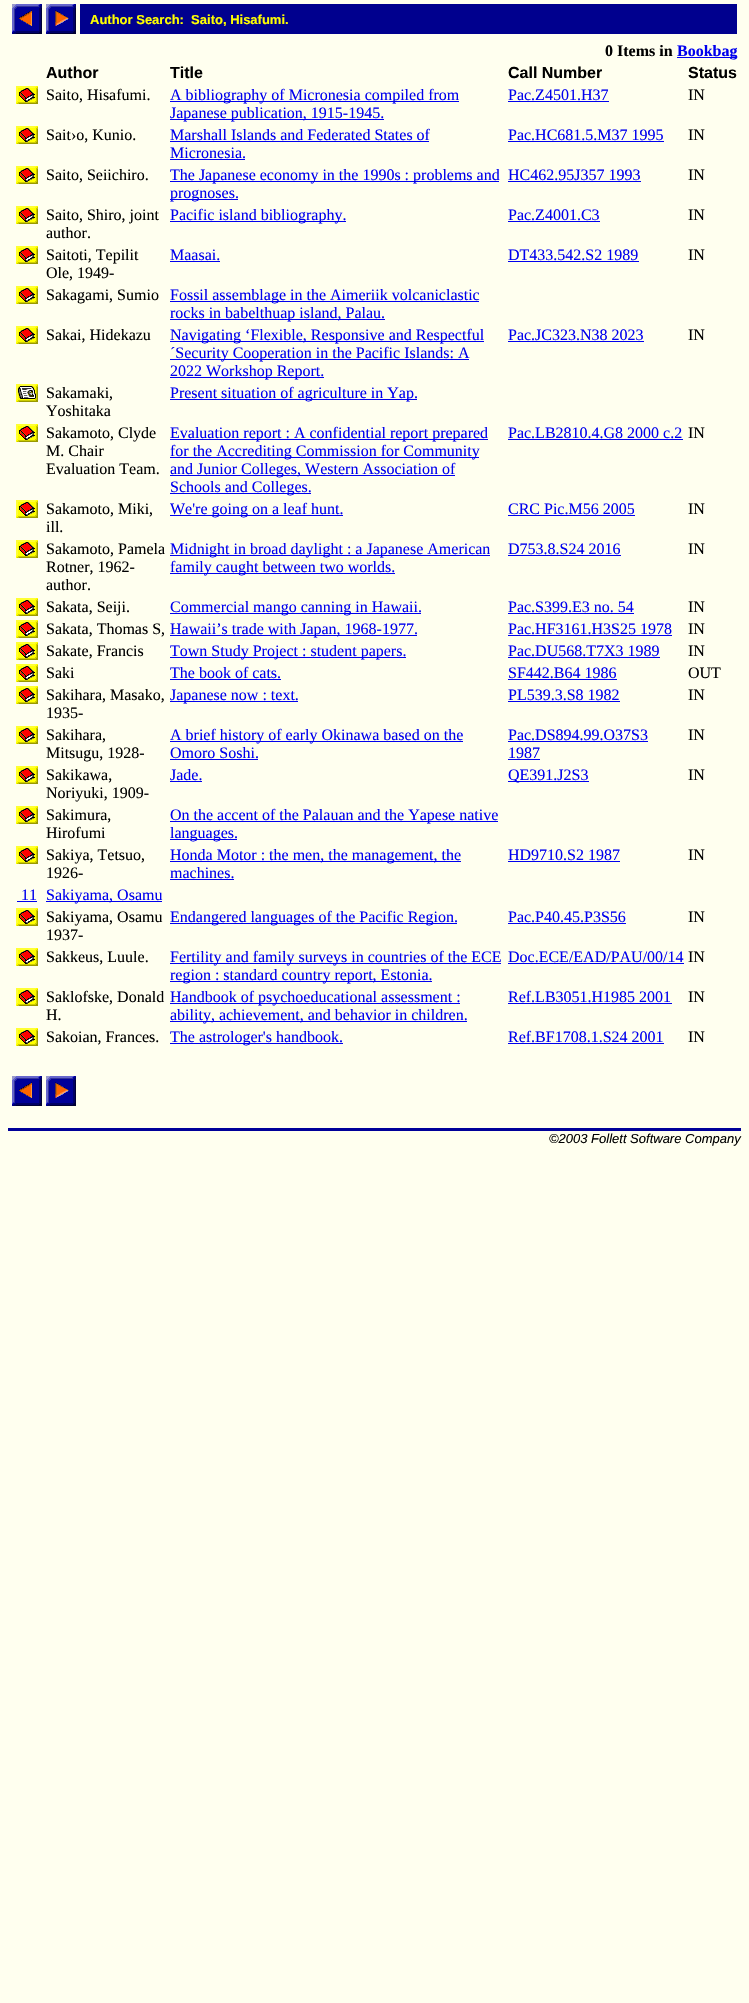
void draw(SkCanvas* canvas) {
	SkPaint fill;
	fill.setAntiAlias(true);
	auto makeFont = [&](const char* family, int weight, float size, bool italic = false) {
		SkFontStyle style(weight, SkFontStyle::kNormal_Width,
			italic ? SkFontStyle::kItalic_Slant : SkFontStyle::kUpright_Slant);
		SkFont result(fontMgr->matchFamilyStyle(family, style), size);
		result.setSubpixel(true);
		return result;
	};
	auto text = [&](const char* s, float x, float y, const SkFont& font) {
		canvas->drawString(s, x, y, font, fill);
	};
	auto box = [&](float l, float t, float r, float b) {
		canvas->drawRect(SkRect::MakeLTRB(l, t, r, b), fill);
	};
	auto picture = [&](const char* path, float l, float t, float r, float b) {
		auto image = SkImages::DeferredFromEncodedData(SkData::MakeFromFileName(path));
		canvas->drawImageRect(image, SkRect::MakeLTRB(l, t, r, b), SkSamplingOptions());
	};
	canvas->clear(0xFFFFFFEF);
	picture("image0.png", 12, 4, 42, 34);
	picture("image1.png", 46, 4, 76, 34);
	fill.setColor(0xFF00008E);
	box(80, 4, 737, 34);
	fill.setColor(0xFF0000EE);
	box(677, 57, 737, 58);
	picture("image2.png", 16, 86, 38, 104);
	box(170, 101, 459, 102);
	box(170, 119, 384, 120);
	box(508, 101, 609, 102);
	picture("image2.png", 16, 126, 38, 144);
	box(170, 141, 429, 142);
	box(170, 159, 245, 160);
	box(508, 141, 664, 142);
	picture("image2.png", 16, 166, 38, 184);
	box(170, 181, 499, 182);
	box(170, 199, 238, 200);
	box(508, 181, 641, 182);
	picture("image2.png", 16, 206, 38, 224);
	box(170, 221, 346, 222);
	box(508, 221, 600, 222);
	picture("image2.png", 16, 246, 38, 264);
	box(170, 261, 220, 262);
	box(508, 261, 639, 262);
	picture("image2.png", 16, 286, 38, 304);
	box(170, 301, 479, 302);
	box(170, 319, 385, 320);
	picture("image2.png", 16, 326, 38, 344);
	box(170, 341, 484, 342);
	box(170, 359, 469, 360);
	box(170, 377, 324, 378);
	box(508, 341, 644, 342);
	picture("image3.png", 16, 384, 38, 402);
	box(170, 399, 417, 400);
	picture("image2.png", 16, 424, 38, 442);
	box(170, 439, 488, 440);
	box(170, 457, 479, 458);
	box(170, 475, 455, 476);
	box(170, 493, 311, 494);
	box(508, 439, 683, 440);
	picture("image2.png", 16, 500, 38, 518);
	box(170, 515, 343, 516);
	box(508, 515, 635, 516);
	picture("image2.png", 16, 540, 38, 558);
	box(170, 555, 490, 556);
	box(170, 573, 395, 574);
	box(508, 555, 621, 556);
	picture("image2.png", 16, 598, 38, 616);
	box(170, 613, 421, 614);
	box(508, 613, 634, 614);
	picture("image2.png", 16, 620, 38, 638);
	box(170, 635, 417, 636);
	box(508, 635, 672, 636);
	picture("image2.png", 16, 642, 38, 660);
	box(170, 657, 406, 658);
	box(508, 657, 660, 658);
	picture("image2.png", 16, 664, 38, 682);
	box(170, 679, 281, 680);
	box(508, 679, 617, 680);
	picture("image2.png", 16, 686, 38, 704);
	box(170, 701, 298, 702);
	box(508, 701, 620, 702);
	picture("image2.png", 16, 726, 38, 744);
	box(170, 741, 463, 742);
	box(170, 759, 258, 760);
	box(508, 741, 648, 742);
	box(508, 759, 540, 760);
	picture("image2.png", 16, 766, 38, 784);
	box(170, 781, 202, 782);
	box(508, 781, 589, 782);
	picture("image2.png", 16, 806, 38, 824);
	box(170, 821, 498, 822);
	box(170, 839, 237, 840);
	picture("image2.png", 16, 846, 38, 864);
	box(170, 861, 461, 862);
	box(170, 879, 234, 880);
	box(508, 861, 620, 862);
	box(17, 901, 37, 902);
	box(46, 901, 162, 902);
	picture("image2.png", 16, 908, 38, 926);
	box(170, 923, 457, 924);
	box(508, 923, 626, 924);
	picture("image2.png", 16, 948, 38, 966);
	box(170, 963, 501, 964);
	box(170, 981, 432, 982);
	box(508, 963, 684, 964);
	picture("image2.png", 16, 988, 38, 1006);
	box(170, 1003, 460, 1004);
	box(170, 1021, 467, 1022);
	box(508, 1003, 672, 1004);
	picture("image2.png", 16, 1028, 38, 1046);
	box(170, 1043, 343, 1044);
	box(508, 1043, 664, 1044);
	picture("image0.png", 12, 1076, 42, 1106);
	picture("image1.png", 46, 1076, 76, 1106);
	fill.setColor(0xFF000099);
	box(8, 1128, 741, 1131);
	auto font1 = makeFont("Liberation Sans", 700, 13);
	fill.setColor(0xFFFFFF00);
	text("Author Search:  Saito, Hisafumi.", 90, 24, font1);
	auto font2 = makeFont("Liberation Serif", 700, 16);
	fill.setColor(0xFF000000);
	text("0 Items in", 605, 56, font2);
	fill.setColor(0xFF0000EE);
	text("Bookbag", 677, 56, font2);
	auto font3 = makeFont("Liberation Sans", 700, 16);
	fill.setColor(0xFF000000);
	text("Author", 46, 78, font3);
	text("Title", 170, 78, font3);
	text("Call Number", 508, 78, font3);
	text("Status", 688, 78, font3);
	auto font4 = makeFont("Liberation Serif", 400, 16);
	text("Saito, Hisafumi.", 46, 100, font4);
	fill.setColor(0xFF0000EE);
	text("A bibliography of Micronesia compiled from", 170, 100, font4);
	text("Japanese publication, 1915-1945.", 170, 118, font4);
	text("Pac.Z4501.H37", 508, 100, font4);
	fill.setColor(0xFF000000);
	text("IN", 688, 100, font4);
	text("Sait›o, Kunio.", 46, 140, font4);
	fill.setColor(0xFF0000EE);
	text("Marshall Islands and Federated States of", 170, 140, font4);
	text("Micronesia.", 170, 158, font4);
	text("Pac.HC681.5.M37 1995", 508, 140, font4);
	fill.setColor(0xFF000000);
	text("IN", 688, 140, font4);
	text("Saito, Seiichiro.", 46, 180, font4);
	fill.setColor(0xFF0000EE);
	text("The Japanese economy in the 1990s : problems and", 170, 180, font4);
	text("prognoses.", 170, 198, font4);
	text("HC462.95J357 1993", 508, 180, font4);
	fill.setColor(0xFF000000);
	text("IN", 688, 180, font4);
	text("Saito, Shiro, joint", 46, 220, font4);
	text("author.", 46, 238, font4);
	fill.setColor(0xFF0000EE);
	text("Pacific island bibliography.", 170, 220, font4);
	text("Pac.Z4001.C3", 508, 220, font4);
	fill.setColor(0xFF000000);
	text("IN", 688, 220, font4);
	text("Saitoti, Tepilit", 46, 260, font4);
	text("Ole, 1949-", 46, 278, font4);
	fill.setColor(0xFF0000EE);
	text("Maasai.", 170, 260, font4);
	text("DT433.542.S2 1989", 508, 260, font4);
	fill.setColor(0xFF000000);
	text("IN", 688, 260, font4);
	text("Sakagami, Sumio", 46, 300, font4);
	fill.setColor(0xFF0000EE);
	text("Fossil assemblage in the Aimeriik volcaniclastic", 170, 300, font4);
	text("rocks in babelthuap island, Palau.", 170, 318, font4);
	fill.setColor(0xFF000000);
	text("Sakai, Hidekazu", 46, 340, font4);
	fill.setColor(0xFF0000EE);
	text("Navigating ‘Flexible, Responsive and Respectful", 170, 340, font4);
	text("´Security Cooperation in the Pacific Islands: A", 170, 358, font4);
	text("2022 Workshop Report.", 170, 376, font4);
	text("Pac.JC323.N38 2023", 508, 340, font4);
	fill.setColor(0xFF000000);
	text("IN", 688, 340, font4);
	text("Sakamaki,", 46, 398, font4);
	text("Yoshitaka", 46, 416, font4);
	fill.setColor(0xFF0000EE);
	text("Present situation of agriculture in Yap.", 170, 398, font4);
	fill.setColor(0xFF000000);
	text("Sakamoto, Clyde", 46, 438, font4);
	text("M. Chair", 46, 456, font4);
	text("Evaluation Team.", 46, 474, font4);
	fill.setColor(0xFF0000EE);
	text("Evaluation report : A confidential report prepared", 170, 438, font4);
	text("for the Accrediting Commission for Community", 170, 456, font4);
	text("and Junior Colleges, Western Association of", 170, 474, font4);
	text("Schools and Colleges.", 170, 492, font4);
	text("Pac.LB2810.4.G8 2000 c.2", 508, 438, font4);
	fill.setColor(0xFF000000);
	text("IN", 688, 438, font4);
	text("Sakamoto, Miki,", 46, 514, font4);
	text("ill.", 46, 532, font4);
	fill.setColor(0xFF0000EE);
	text("We're going on a leaf hunt.", 170, 514, font4);
	text("CRC Pic.M56 2005", 508, 514, font4);
	fill.setColor(0xFF000000);
	text("IN", 688, 514, font4);
	text("Sakamoto, Pamela", 46, 554, font4);
	text("Rotner, 1962-", 46, 572, font4);
	text("author.", 46, 590, font4);
	fill.setColor(0xFF0000EE);
	text("Midnight in broad daylight : a Japanese American", 170, 554, font4);
	text("family caught between two worlds.", 170, 572, font4);
	text("D753.8.S24 2016", 508, 554, font4);
	fill.setColor(0xFF000000);
	text("IN", 688, 554, font4);
	text("Sakata, Seiji.", 46, 612, font4);
	fill.setColor(0xFF0000EE);
	text("Commercial mango canning in Hawaii.", 170, 612, font4);
	text("Pac.S399.E3 no. 54", 508, 612, font4);
	fill.setColor(0xFF000000);
	text("IN", 688, 612, font4);
	text("Sakata, Thomas S,", 46, 634, font4);
	fill.setColor(0xFF0000EE);
	text("Hawaii’s trade with Japan, 1968-1977.", 170, 634, font4);
	text("Pac.HF3161.H3S25 1978", 508, 634, font4);
	fill.setColor(0xFF000000);
	text("IN", 688, 634, font4);
	text("Sakate, Francis", 46, 656, font4);
	fill.setColor(0xFF0000EE);
	text("Town Study Project : student papers.", 170, 656, font4);
	text("Pac.DU568.T7X3 1989", 508, 656, font4);
	fill.setColor(0xFF000000);
	text("IN", 688, 656, font4);
	text("Saki", 46, 678, font4);
	fill.setColor(0xFF0000EE);
	text("The book of cats.", 170, 678, font4);
	text("SF442.B64 1986", 508, 678, font4);
	fill.setColor(0xFF000000);
	text("OUT", 688, 678, font4);
	text("Sakihara, Masako,", 46, 700, font4);
	text("1935-", 46, 718, font4);
	fill.setColor(0xFF0000EE);
	text("Japanese now : text.", 170, 700, font4);
	text("PL539.3.S8 1982", 508, 700, font4);
	fill.setColor(0xFF000000);
	text("IN", 688, 700, font4);
	text("Sakihara,", 46, 740, font4);
	text("Mitsugu, 1928-", 46, 758, font4);
	fill.setColor(0xFF0000EE);
	text("A brief history of early Okinawa based on the", 170, 740, font4);
	text("Omoro Soshi.", 170, 758, font4);
	text("Pac.DS894.99.O37S3", 508, 740, font4);
	text("1987", 508, 758, font4);
	fill.setColor(0xFF000000);
	text("IN", 688, 740, font4);
	text("Sakikawa,", 46, 780, font4);
	text("Noriyuki, 1909-", 46, 798, font4);
	fill.setColor(0xFF0000EE);
	text("Jade.", 170, 780, font4);
	text("QE391.J2S3", 508, 780, font4);
	fill.setColor(0xFF000000);
	text("IN", 688, 780, font4);
	text("Sakimura,", 46, 820, font4);
	text("Hirofumi", 46, 838, font4);
	fill.setColor(0xFF0000EE);
	text("On the accent of the Palauan and the Yapese native", 170, 820, font4);
	text("languages.", 170, 838, font4);
	fill.setColor(0xFF000000);
	text("Sakiya, Tetsuo,", 46, 860, font4);
	text("1926-", 46, 878, font4);
	fill.setColor(0xFF0000EE);
	text("Honda Motor : the men, the management, the", 170, 860, font4);
	text("machines.", 170, 878, font4);
	text("HD9710.S2 1987", 508, 860, font4);
	fill.setColor(0xFF000000);
	text("IN", 688, 860, font4);
	fill.setColor(0xFF0000EE);
	text("11", 21, 900, font4);
	text("Sakiyama, Osamu", 46, 900, font4);
	fill.setColor(0xFF000000);
	text("Sakiyama, Osamu", 46, 922, font4);
	text("1937-", 46, 940, font4);
	fill.setColor(0xFF0000EE);
	text("Endangered languages of the Pacific Region.", 170, 922, font4);
	text("Pac.P40.45.P3S56", 508, 922, font4);
	fill.setColor(0xFF000000);
	text("IN", 688, 922, font4);
	text("Sakkeus, Luule.", 46, 962, font4);
	fill.setColor(0xFF0000EE);
	text("Fertility and family surveys in countries of the ECE", 170, 962, font4);
	text("region : standard country report, Estonia.", 170, 980, font4);
	text("Doc.ECE/EAD/PAU/00/14", 508, 962, font4);
	fill.setColor(0xFF000000);
	text("IN", 688, 962, font4);
	text("Saklofske, Donald", 46, 1002, font4);
	text("H.", 46, 1020, font4);
	fill.setColor(0xFF0000EE);
	text("Handbook of psychoeducational assessment :", 170, 1002, font4);
	text("ability, achievement, and behavior in children.", 170, 1020, font4);
	text("Ref.LB3051.H1985 2001", 508, 1002, font4);
	fill.setColor(0xFF000000);
	text("IN", 688, 1002, font4);
	text("Sakoian, Frances.", 46, 1042, font4);
	fill.setColor(0xFF0000EE);
	text("The astrologer's handbook.", 170, 1042, font4);
	text("Ref.BF1708.1.S24 2001", 508, 1042, font4);
	fill.setColor(0xFF000000);
	text("IN", 688, 1042, font4);
	auto font5 = makeFont("Liberation Sans", 400, 13, true);
	text("©2003 Follett Software Company", 549, 1143, font5);
}
